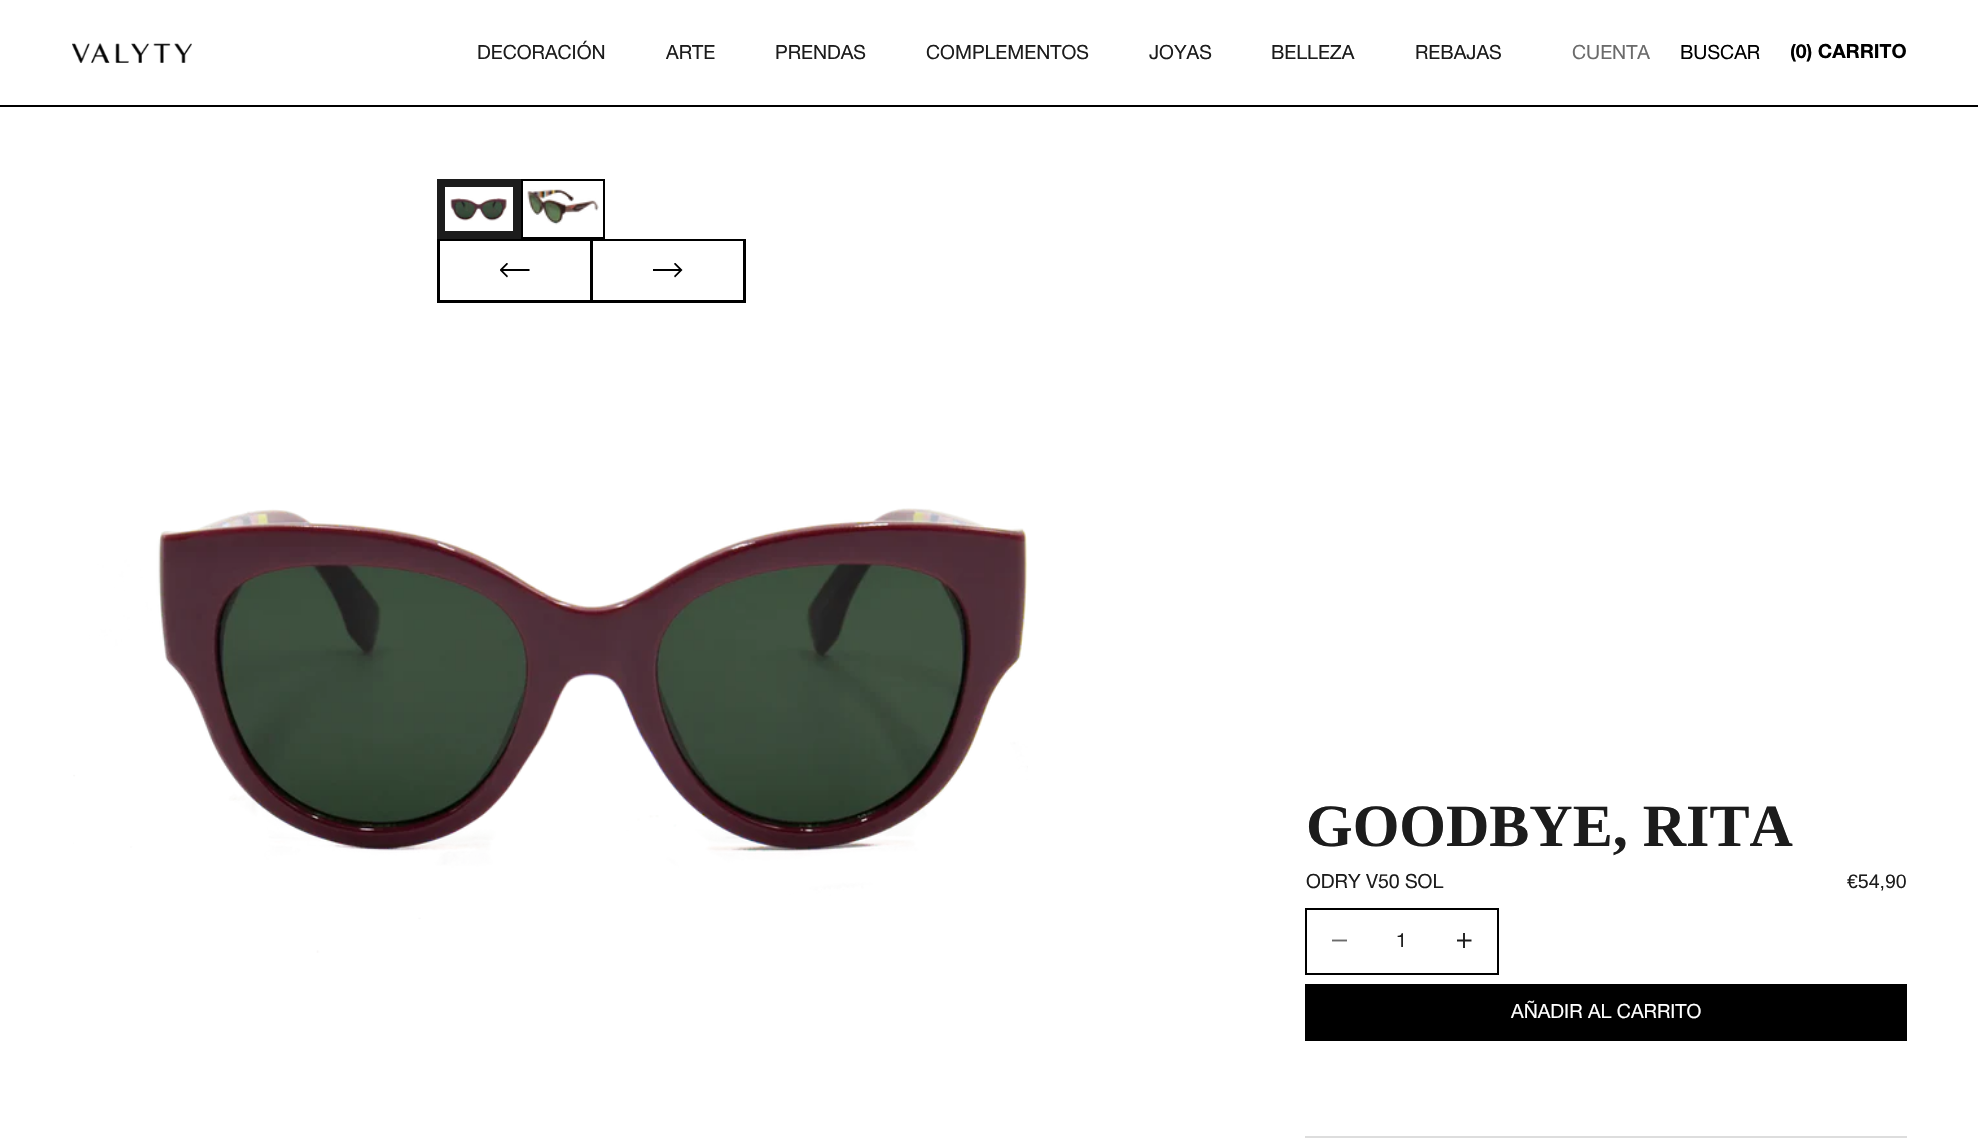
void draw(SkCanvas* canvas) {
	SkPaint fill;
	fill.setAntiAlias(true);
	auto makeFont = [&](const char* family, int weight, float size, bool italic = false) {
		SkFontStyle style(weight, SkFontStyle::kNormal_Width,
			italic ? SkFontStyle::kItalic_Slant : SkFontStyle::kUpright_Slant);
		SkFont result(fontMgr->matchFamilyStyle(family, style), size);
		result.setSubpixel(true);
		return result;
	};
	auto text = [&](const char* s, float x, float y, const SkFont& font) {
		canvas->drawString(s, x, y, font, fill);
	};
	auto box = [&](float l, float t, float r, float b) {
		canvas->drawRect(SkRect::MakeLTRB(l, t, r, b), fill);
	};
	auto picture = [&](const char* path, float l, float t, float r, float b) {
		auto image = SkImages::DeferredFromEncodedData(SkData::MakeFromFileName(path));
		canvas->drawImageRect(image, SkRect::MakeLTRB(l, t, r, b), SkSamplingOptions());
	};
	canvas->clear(0xFFFFFFFF);
	fill.setColor(0xFF000000);
	box(0, 105, 1978, 107);
	picture("image0.png", 72, 43, 192, 63);
	fill.setStyle(SkPaint::kStroke_Style);
	fill.setStrokeWidth(8);
	fill.setColor(0xFF1C1C1C);
	canvas->drawRect(SkRect::MakeLTRB(441, 183, 517, 235), fill);
	picture("image1.png", 450, 198, 507, 221);
	fill.setStrokeWidth(2);
	fill.setColor(0xFF000000);
	canvas->drawRect(SkRect::MakeLTRB(522, 180, 604, 238), fill);
	picture("image2.png", 527, 189, 599, 225);
	fill.setStyle(SkPaint::kFill_Style);
	box(437, 239, 746, 241);
	box(590, 239, 593, 303);
	box(437, 300, 593, 303);
	box(437, 239, 440, 303);
	canvas->save();
	canvas->clipRect(SkRect::MakeLTRB(500, 263, 530, 278));
	canvas->drawPath(SkPathBuilder().moveTo(507, 277.5f).lineTo(508, 276).lineTo(503, 271).lineTo(529.5f, 271).lineTo(529.5f, 269).lineTo(503, 269).lineTo(508, 264).lineTo(507, 262.5f).lineTo(499.5f, 270).close().detach(), fill);
	canvas->restore();
	box(743, 239, 746, 303);
	box(593, 300, 746, 303);
	canvas->save();
	canvas->clipRect(SkRect::MakeLTRB(653, 263, 683, 278));
	canvas->drawPath(SkPathBuilder().moveTo(675, 262.5f).lineTo(674, 264).lineTo(679, 269).lineTo(652.5f, 269).lineTo(652.5f, 271).lineTo(679, 271).lineTo(674, 276).lineTo(675, 277.5f).lineTo(682.5f, 270).close().detach(), fill);
	canvas->restore();
	picture("image3.png", 73, 508, 1028, 953);
	fill.setStyle(SkPaint::kStroke_Style);
	canvas->drawRect(SkRect::MakeLTRB(1306, 909, 1498, 974), fill);
	fill.setStrokeWidth(1.9f);
	fill.setColor(0xFF6B6B6B);
	canvas->drawPath(SkPathBuilder().moveTo(1332, 940.5f).lineTo(1347, 940.5f).detach(), fill);
	canvas->save();
	canvas->clipRect(SkRect::MakeLTRB(1457, 933, 1472, 948));
	fill.setColor(0xFF1C1C1C);
	canvas->drawPath(SkPathBuilder().moveTo(1464, 933).lineTo(1464, 948).moveTo(1456.5f, 940.5f).lineTo(1471.5f, 940.5f).detach(), fill);
	canvas->restore();
	fill.setStyle(SkPaint::kFill_Style);
	fill.setColor(0xFF000000);
	box(1305, 984, 1907, 1041);
	fill.setColor(0xFFDDDDDD);
	box(1305, 1136, 1907, 1138);
	auto font1 = makeFont("Helvetica Neue", 400, 19.5f);
	fill.setColor(0xFF1C1C1C);
	text("DECORACIÓN", 477, 59, font1);
	text("ARTE", 666, 59, font1);
	text("PRENDAS", 775, 59, font1);
	text("COMPLEMENTOS", 926, 59, font1);
	text("JOYAS", 1149, 59, font1);
	text("BELLEZA", 1271, 59, font1);
	text("REBAJAS", 1415, 59, font1);
	fill.setColor(0xFF6B6B6B);
	text("CUENTA", 1572, 59, font1);
	fill.setColor(0xFF000000);
	text("BUSCAR", 1680, 59, font1);
	auto font2 = makeFont("Helvetica Neue", 700, 19.5f);
	text("(0) CARRITO", 1790, 58, font2);
	auto font3 = makeFont("Liberation Serif", 700, 60);
	fill.setColor(0xFF1C1C1C);
	text("GOODBYE, RITA", 1306, 846, font3);
	text("ODRY V50 SOL", 1306, 888, font1);
	auto font4 = makeFont("Liberation Sans", 400, 19.5f);
	text("€54,90", 1847, 888, font4);
	text("1", 1396, 947, font1);
	fill.setColor(0xFFFFFFFF);
	text("AÑADIR AL CARRITO", 1511, 1018, font1);
}
